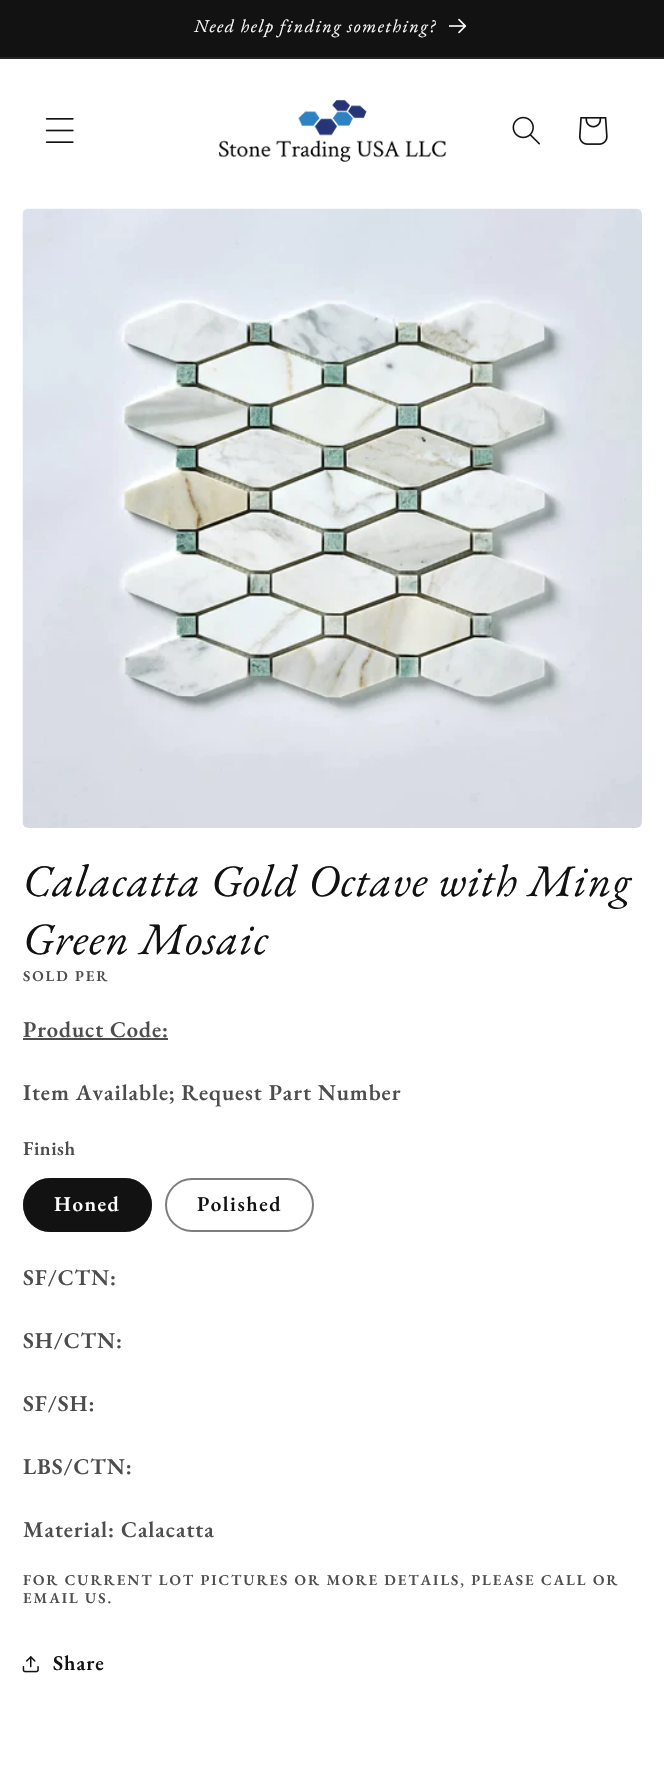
void draw(SkCanvas* canvas) {
	SkPaint fill;
	fill.setAntiAlias(true);
	auto makeFont = [&](const char* family, int weight, float size, bool italic = false) {
		SkFontStyle style(weight, SkFontStyle::kNormal_Width,
			italic ? SkFontStyle::kItalic_Slant : SkFontStyle::kUpright_Slant);
		SkFont result(fontMgr->matchFamilyStyle(family, style), size);
		result.setSubpixel(true);
		return result;
	};
	auto spacedText = [&](const char* s, float x, float y, const SkFont& font, const SkPaint& ink, float letter, float word) {
		std::vector<SkGlyphID> glyphs(font.countText(s, strlen(s), SkTextEncoding::kUTF8));
		std::vector<float> xs(glyphs.size());
		font.textToGlyphs(s, strlen(s), SkTextEncoding::kUTF8, glyphs);
		font.getXPos(glyphs, xs, x);
		float extra = 0;
		for (size_t i = 0; i < glyphs.size(); i++) {
			xs[i] += extra;
			extra += letter + word * (glyphs[i] == font.unicharToGlyph(' '));
		}
		canvas->drawTextBlob(SkTextBlob::MakeFromPosHGlyphs(glyphs, xs, y, font), 0, 0, ink);
	};
	auto box = [&](float l, float t, float r, float b) {
		canvas->drawRect(SkRect::MakeLTRB(l, t, r, b), fill);
	};
	auto roundBox = [&](float l, float t, float r, float b, float radius) {
		canvas->drawRoundRect(SkRect::MakeLTRB(l, t, r, b), radius, radius, fill);
	};
	auto picture = [&](const char* path, float l, float t, float r, float b) {
		auto image = SkImages::DeferredFromEncodedData(SkData::MakeFromFileName(path));
		canvas->drawImageRect(image, SkRect::MakeLTRB(l, t, r, b), SkSamplingOptions());
	};
	canvas->clear(0xFFFFFFFF);
	fill.setColor(0xFF121212);
	box(0, 0, 664, 57);
	fill.setColor(0xFF252525);
	box(0, 57, 664, 59);
	picture("image0.png", 449, 18, 467, 34);
	picture("image1.png", 45, 118, 74, 143);
	picture("image2.png", 218, 99, 447, 162);
	picture("image3.png", 512, 116, 540, 145);
	picture("image4.png", 579, 117, 608, 145);
	picture("image5.png", 22, 208, 642, 828);
	fill.setColor(0xFF4D4D4D);
	box(23, 1038, 168, 1040);
	fill.setColor(0xFF121212);
	roundBox(23, 1178, 152, 1232, 27);
	fill.setStyle(SkPaint::kStroke_Style);
	fill.setStrokeWidth(2);
	fill.setColor(0x8C121212);
	canvas->drawRoundRect(SkRect::MakeLTRB(24, 1179, 151, 1231), 26, 26, fill);
	fill.setColor(0xFF7D7D7D);
	canvas->drawRoundRect(SkRect::MakeLTRB(166, 1179, 313, 1231), 26, 26, fill);
	picture("image6.png", 22, 1656, 39, 1673);
	auto font1 = makeFont("EB Garamond", 400, 18, true);
	fill.setStyle(SkPaint::kFill_Style);
	fill.setColor(0xFFFFFFFF);
	spacedText("Need help finding something?", 194, 32, font1, fill, 1.5f, 0);
	auto font2 = makeFont("EB Garamond", 400, 45, true);
	fill.setColor(0xFF121212);
	spacedText("Calacatta Gold Octave with Ming", 23, 896, font2, fill, 0.9f, 0);
	spacedText("Green Mosaic", 23, 954, font2, fill, 0.9f, 0);
	auto font3 = makeFont("EB Garamond", 600, 15);
	fill.setColor(0xFF4D4D4D);
	spacedText("SOLD PER", 23, 981, font3, fill, 1.95f, 0);
	auto font4 = makeFont("EB Garamond", 600, 22.5f);
	spacedText("Product Code:", 23, 1037, font4, fill, 0.9f, 0);
	spacedText("Item Available; Request Part Number", 23, 1100, font4, fill, 0.9f, 0);
	auto font5 = makeFont("EB Garamond", 600, 19.5f);
	spacedText("Finish", 23, 1155, font5, fill, 0.5f, 0);
	auto font6 = makeFont("EB Garamond", 600, 21);
	fill.setColor(0xFFFFFFFF);
	spacedText("Honed", 54, 1211, font6, fill, 1.5f, 0);
	fill.setColor(0xFF121212);
	spacedText("Polished", 197, 1211, font6, fill, 1.5f, 0);
	fill.setColor(0xFF4D4D4D);
	spacedText("SF/CTN:", 23, 1285, font4, fill, 0.9f, 0);
	spacedText("SH/CTN:", 23, 1348, font4, fill, 0.9f, 0);
	spacedText("SF/SH:", 23, 1411, font4, fill, 0.9f, 0);
	spacedText("LBS/CTN:", 23, 1474, font4, fill, 0.9f, 0);
	spacedText("Material: Calacatta", 23, 1537, font4, fill, 0.9f, 0);
	spacedText("FOR CURRENT LOT PICTURES OR MORE DETAILS, PLEASE CALL OR", 23, 1585, font3, fill, 1.95f, 0);
	spacedText("EMAIL US.", 23, 1603, font3, fill, 1.95f, 0);
	fill.setColor(0xFF121212);
	spacedText("Share", 53, 1670, font6, fill, 0.9f, 0);
}
